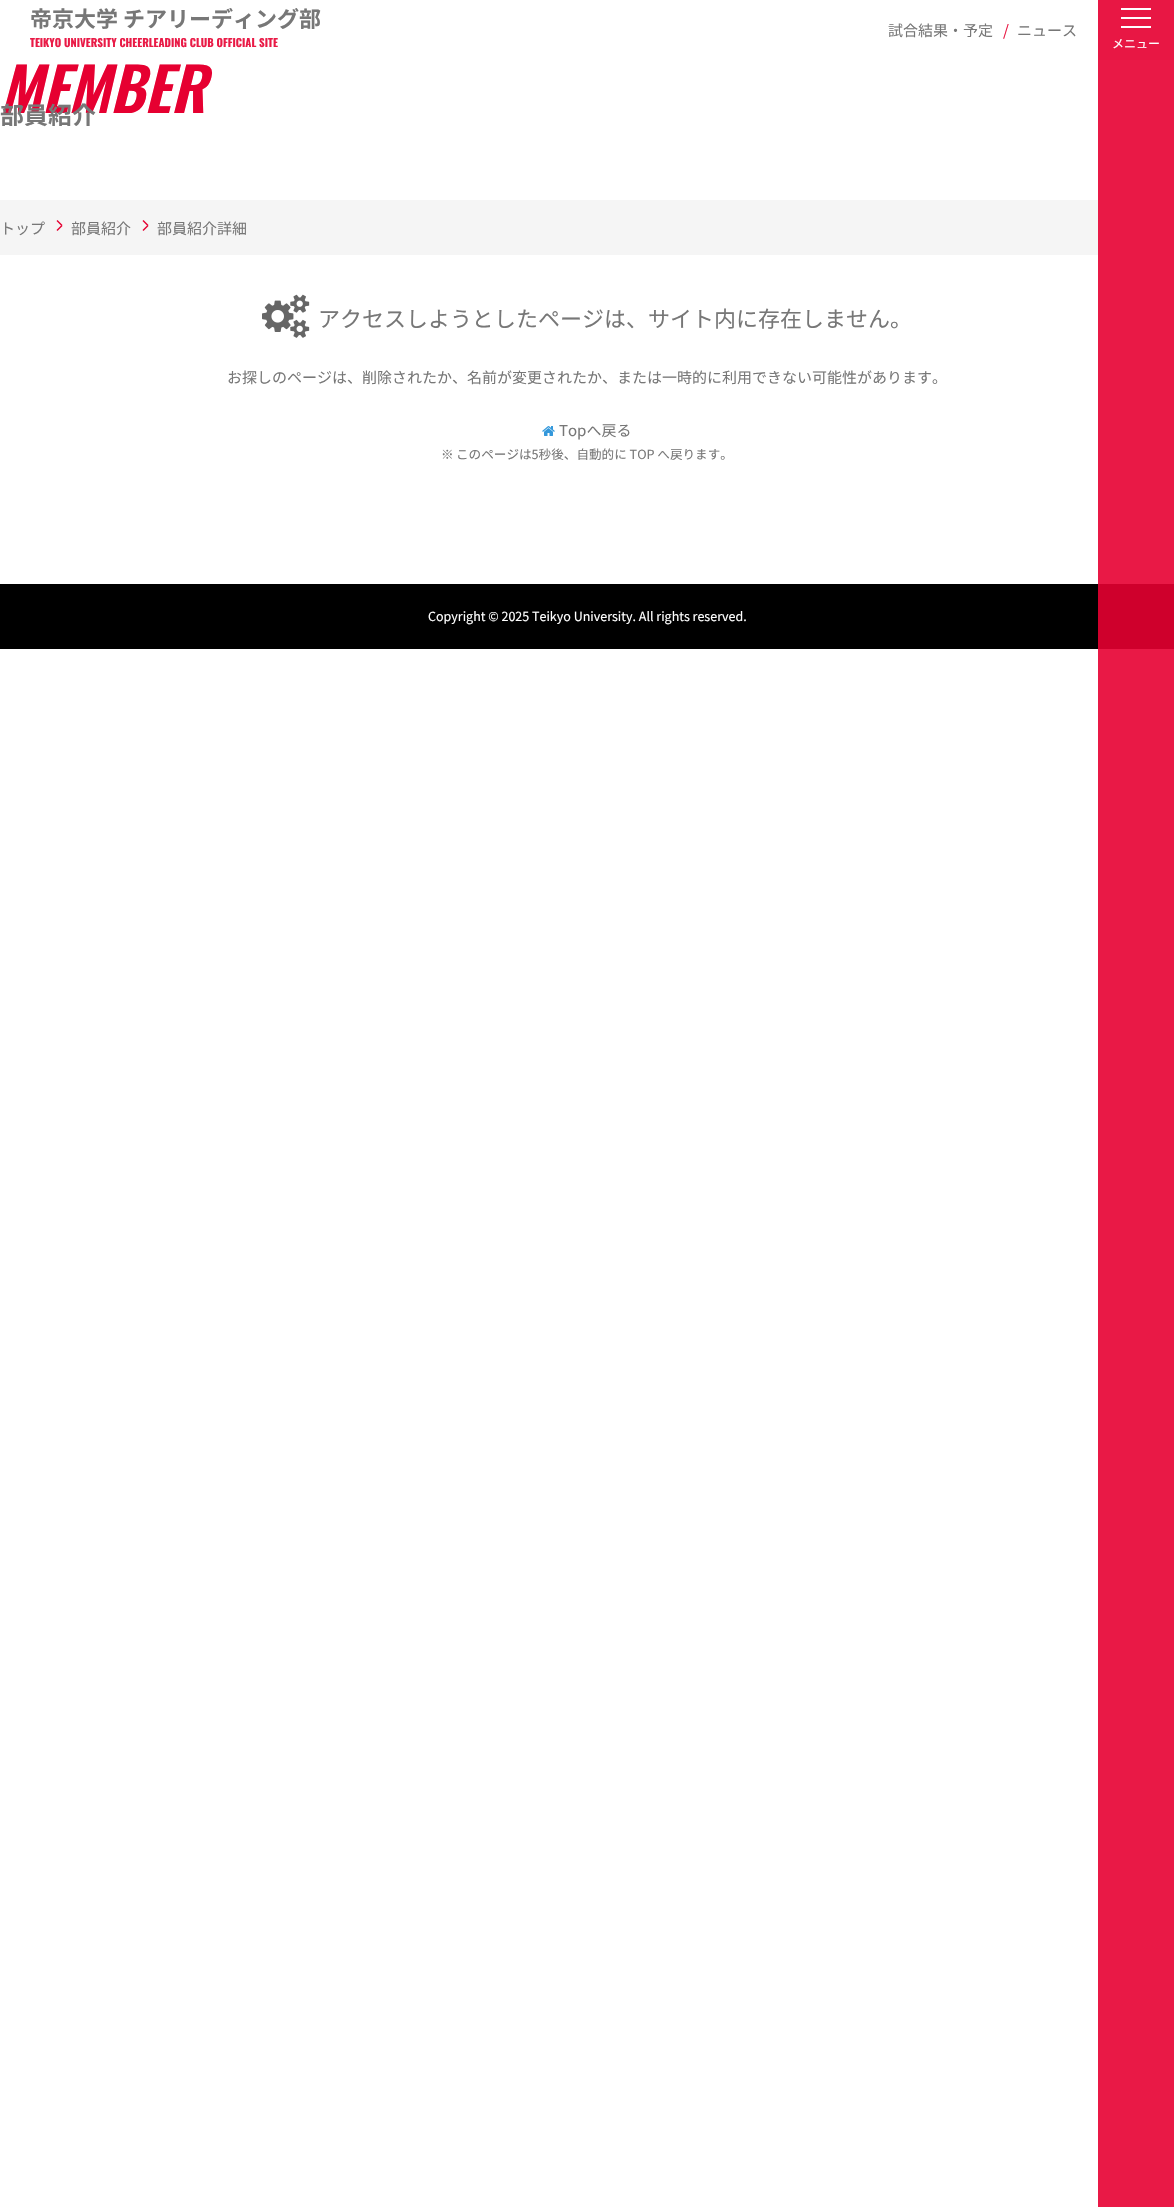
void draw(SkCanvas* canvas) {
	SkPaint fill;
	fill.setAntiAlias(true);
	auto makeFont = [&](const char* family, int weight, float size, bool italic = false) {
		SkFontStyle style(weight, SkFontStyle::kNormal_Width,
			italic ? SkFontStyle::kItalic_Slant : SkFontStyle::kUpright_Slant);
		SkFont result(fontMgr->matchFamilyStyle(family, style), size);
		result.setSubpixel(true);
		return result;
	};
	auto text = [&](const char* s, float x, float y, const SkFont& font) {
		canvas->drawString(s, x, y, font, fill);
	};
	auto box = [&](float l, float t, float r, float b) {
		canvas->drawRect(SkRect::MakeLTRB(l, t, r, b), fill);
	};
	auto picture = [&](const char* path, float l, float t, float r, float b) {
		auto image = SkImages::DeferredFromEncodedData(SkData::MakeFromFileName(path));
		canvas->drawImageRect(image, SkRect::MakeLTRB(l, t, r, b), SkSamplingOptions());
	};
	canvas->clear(0xFFFFFFFF);
	fill.setColor(0xFFE91946);
	box(1098, 60, 1174, 2207);
	fill.setColor(0xFFE81744);
	box(1098, 0, 1174, 60);
	fill.setColor(0xFFFFFFFF);
	box(1121, 8, 1151, 10);
	box(1121, 17, 1151, 19);
	box(1121, 26, 1151, 28);
	fill.setColor(0xFFF5F5F5);
	box(0, 200, 1098, 255);
	fill.setColor(0xFFE60031);
	canvas->drawPath(SkPathBuilder().moveTo(57.5f, 220).lineTo(62.5f, 225).lineTo(61.5f, 226).lineTo(56.5f, 221).close().detach(), fill);
	canvas->drawPath(SkPathBuilder().moveTo(56.5f, 230).lineTo(61.5f, 225).lineTo(62.5f, 226).lineTo(57.5f, 231).close().detach(), fill);
	canvas->drawPath(SkPathBuilder().moveTo(143.5f, 220).lineTo(148.5f, 225).lineTo(147.5f, 226).lineTo(142.5f, 221).close().detach(), fill);
	canvas->drawPath(SkPathBuilder().moveTo(142.5f, 230).lineTo(147.5f, 225).lineTo(148.5f, 226).lineTo(143.5f, 231).close().detach(), fill);
	picture("image0.png", 262, 294, 310, 338);
	picture("image1.png", 542, 426, 555, 436);
	fill.setColor(0xFF000000);
	box(0, 584, 1098, 649);
	fill.setColor(0xFFCF002C);
	box(1098, 584, 1174, 649);
	auto font1 = makeFont("Noto Sans JP", 700, 22);
	fill.setColor(0xFF777777);
	text("帝京大学 チアリーディング部", 30, 27, font1);
	auto font2 = makeFont("Oswald", 700, 11);
	fill.setColor(0xFFE91A46);
	text("TEIKYO UNIVERSITY CHEERLEADING CLUB OFFICIAL SITE", 30, 47, font2);
	auto font3 = makeFont("Noto Sans JP", 400, 15);
	fill.setColor(0xFF777777);
	text("試合結果・予定", 888, 36, font3);
	fill.setColor(0xFFE91A46);
	text("/", 1003, 36, font3);
	fill.setColor(0xFF777777);
	text("ニュース", 1017, 36, font3);
	auto font4 = makeFont("Noto Sans JP", 400, 12);
	fill.setColor(0xFFFFFFFF);
	text("メニュー", 1112, 48, font4);
	auto font5 = makeFont("Oswald", 600, 60, true);
	fill.setColor(0xFFE60031);
	text("MEMBER", 0, 113, font5);
	auto font6 = makeFont("Noto Sans JP", 700, 24);
	fill.setColor(0xFF777777);
	text("部員紹介", 0, 124, font6);
	text("トップ", 0, 234, font3);
	text("部員紹介", 71, 234, font3);
	text("部員紹介詳細", 157, 234, font3);
	auto font7 = makeFont("Noto Sans JP", 400, 22);
	text("アクセスしようとしたページは、サイト内に存在しません。", 318, 327, font7);
	text("お探しのページは、削除されたか、名前が変更されたか、または一時的に利用できない可能性があります。", 227, 383, font3);
	text("Topへ戻る", 559, 436, font3);
	auto font8 = makeFont("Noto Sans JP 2", 400, 12.6f);
	text("※", 441, 459, font8);
	auto font9 = makeFont("Noto Sans JP", 400, 12.6f);
	text("このページは5秒後、自動的に TOP へ戻ります。", 456, 459, font9);
	auto font10 = makeFont("Noto Sans JP", 400, 12.5f);
	fill.setColor(0xFFFFFFFF);
	text("Copyright © 2025 Teikyo University. All rights reserved.", 428, 621, font10);
}
